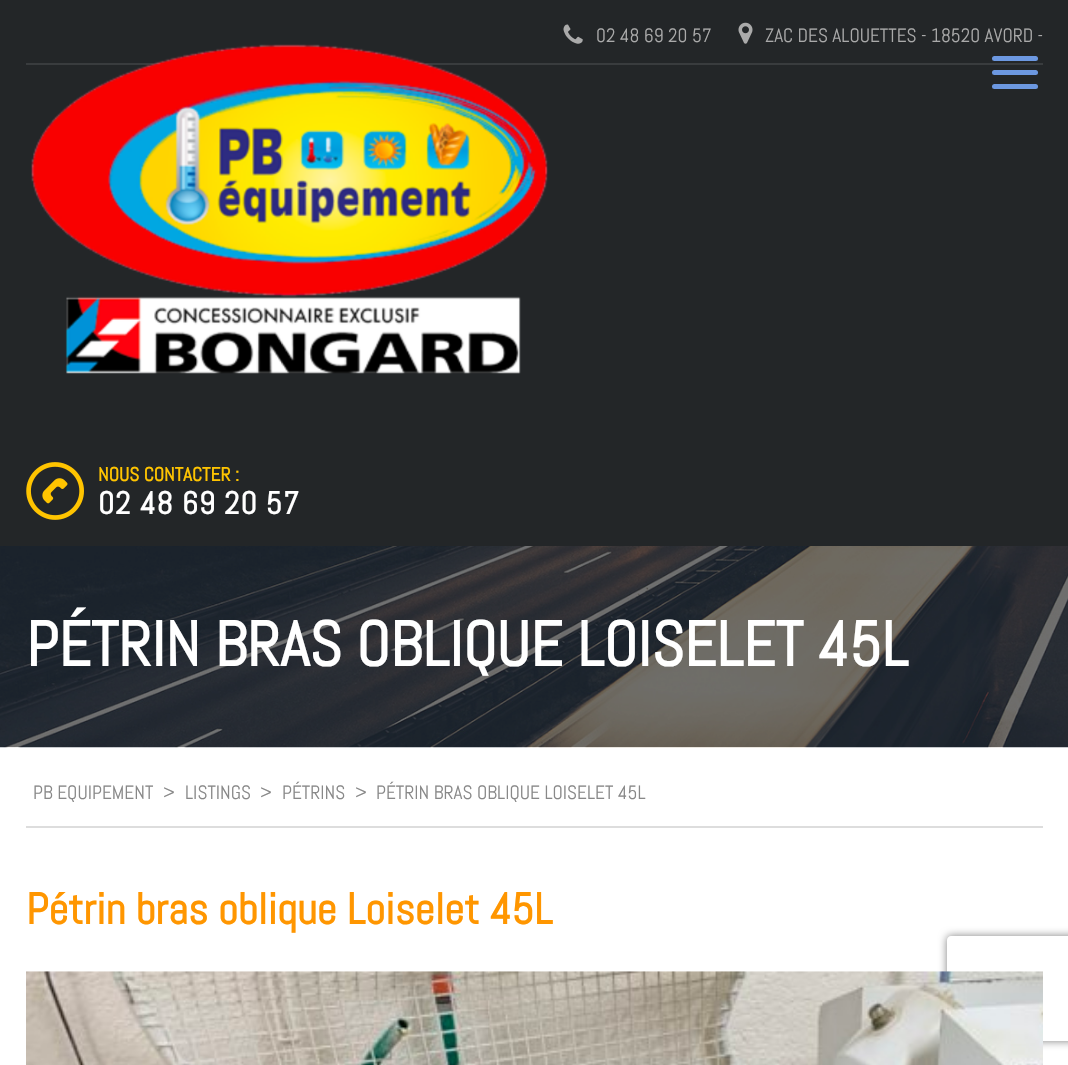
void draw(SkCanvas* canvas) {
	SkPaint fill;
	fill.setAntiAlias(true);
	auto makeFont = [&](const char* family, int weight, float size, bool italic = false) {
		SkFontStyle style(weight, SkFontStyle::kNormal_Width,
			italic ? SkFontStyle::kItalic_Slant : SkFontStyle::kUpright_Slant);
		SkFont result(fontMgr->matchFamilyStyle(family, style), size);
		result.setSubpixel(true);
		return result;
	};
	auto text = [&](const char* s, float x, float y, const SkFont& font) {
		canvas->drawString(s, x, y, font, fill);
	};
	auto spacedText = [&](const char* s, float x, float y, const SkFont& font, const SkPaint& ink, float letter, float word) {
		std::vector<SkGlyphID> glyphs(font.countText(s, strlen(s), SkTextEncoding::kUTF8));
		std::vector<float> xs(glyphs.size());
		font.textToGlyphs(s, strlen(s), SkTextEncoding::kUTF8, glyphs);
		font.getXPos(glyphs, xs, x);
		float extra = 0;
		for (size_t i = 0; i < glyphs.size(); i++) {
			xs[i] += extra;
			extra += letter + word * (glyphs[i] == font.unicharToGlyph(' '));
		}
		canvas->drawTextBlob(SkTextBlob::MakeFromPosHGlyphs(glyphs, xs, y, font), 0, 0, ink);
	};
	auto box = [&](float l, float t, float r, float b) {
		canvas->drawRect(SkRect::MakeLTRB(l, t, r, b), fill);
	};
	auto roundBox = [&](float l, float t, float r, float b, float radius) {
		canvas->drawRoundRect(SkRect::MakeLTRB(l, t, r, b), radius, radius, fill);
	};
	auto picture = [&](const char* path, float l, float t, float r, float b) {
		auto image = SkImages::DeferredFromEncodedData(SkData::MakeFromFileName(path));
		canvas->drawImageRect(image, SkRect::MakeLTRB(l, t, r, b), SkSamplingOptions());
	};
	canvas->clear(0xFFFFFFFF);
	fill.setColor(0xFF232628);
	box(0, 0, 1068, 546);
	fill.setColor(0xFF393C3E);
	box(26, 63, 1043, 65);
	picture("image0.png", 563, 24, 583, 44);
	picture("image1.png", 738, 22, 753, 44);
	picture("image2.png", 31, 44, 548, 374);
	fill.setColor(0xFF6C98E1);
	roundBox(992, 56, 1038, 61, 2.5f);
	roundBox(992, 70, 1038, 75, 2.5f);
	roundBox(992, 84, 1038, 89, 2.5f);
	picture("image3.png", 26, 462, 84, 520);
	picture("image4.png", 0, 546, 1068, 748);
	fill.setColor(0xFFDDDDDD);
	box(26, 826, 1043, 828);
	canvas->save();
	canvas->clipPath(SkPathBuilder(SkPathFillType::kEvenOdd).moveTo(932, 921).lineTo(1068, 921).lineTo(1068, 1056).lineTo(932, 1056).close().moveTo(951, 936).lineTo(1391, 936).cubicTo(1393, 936, 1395, 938, 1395, 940).lineTo(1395, 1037).cubicTo(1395, 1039, 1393, 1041, 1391, 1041).lineTo(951, 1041).cubicTo(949, 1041, 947, 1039, 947, 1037).lineTo(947, 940).cubicTo(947, 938, 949, 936, 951, 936).close().detach(), true);
	fill.setColor(0xFF808080);
	fill.setMaskFilter(SkMaskFilter::MakeBlur(kNormal_SkBlurStyle, 4.5f));
	canvas->drawRoundRect(SkRect::MakeLTRB(947, 936, 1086, 1041), 4, 4, fill);
	fill.setMaskFilter(nullptr);
	canvas->restore();
	picture("image5.png", 26, 971, 1043, 1065);
	auto font1 = makeFont("Abel", 400, 19.25f);
	fill.setColor(0xFFAAAAAA);
	text("02 48 69 20 57", 596, 42, font1);
	text("ZAC DES ALOUETTES - 18520 AVORD -", 765, 42, font1);
	auto font2 = makeFont("Abel", 700, 19.25f);
	fill.setColor(0xFFFFC400);
	text("NOUS CONTACTER :", 98, 481, font2);
	auto font3 = makeFont("Abel", 700, 31.5f);
	fill.setColor(0xFFFFFFFF);
	spacedText("02 48 69 20 57", 98, 514, font3, fill, 0.9f, 0);
	auto font4 = makeFont("Abel", 700, 63);
	text("PÉTRIN BRAS OBLIQUE LOISELET 45L", 26, 666, font4);
	fill.setColor(0xFF888888);
	text("PB EQUIPEMENT", 33, 799, font1);
	text(">", 163, 799, font1);
	text("LISTINGS", 185, 799, font1);
	text(">", 260, 799, font1);
	text("PÉTRINS", 282, 799, font1);
	text(">", 355, 799, font1);
	text("PÉTRIN BRAS OBLIQUE LOISELET 45L", 376, 799, font1);
	auto font5 = makeFont("Abel", 700, 43.75f);
	fill.setColor(0xFFFF9600);
	text("Pétrin bras oblique Loiselet 45L", 26, 924, font5);
}
